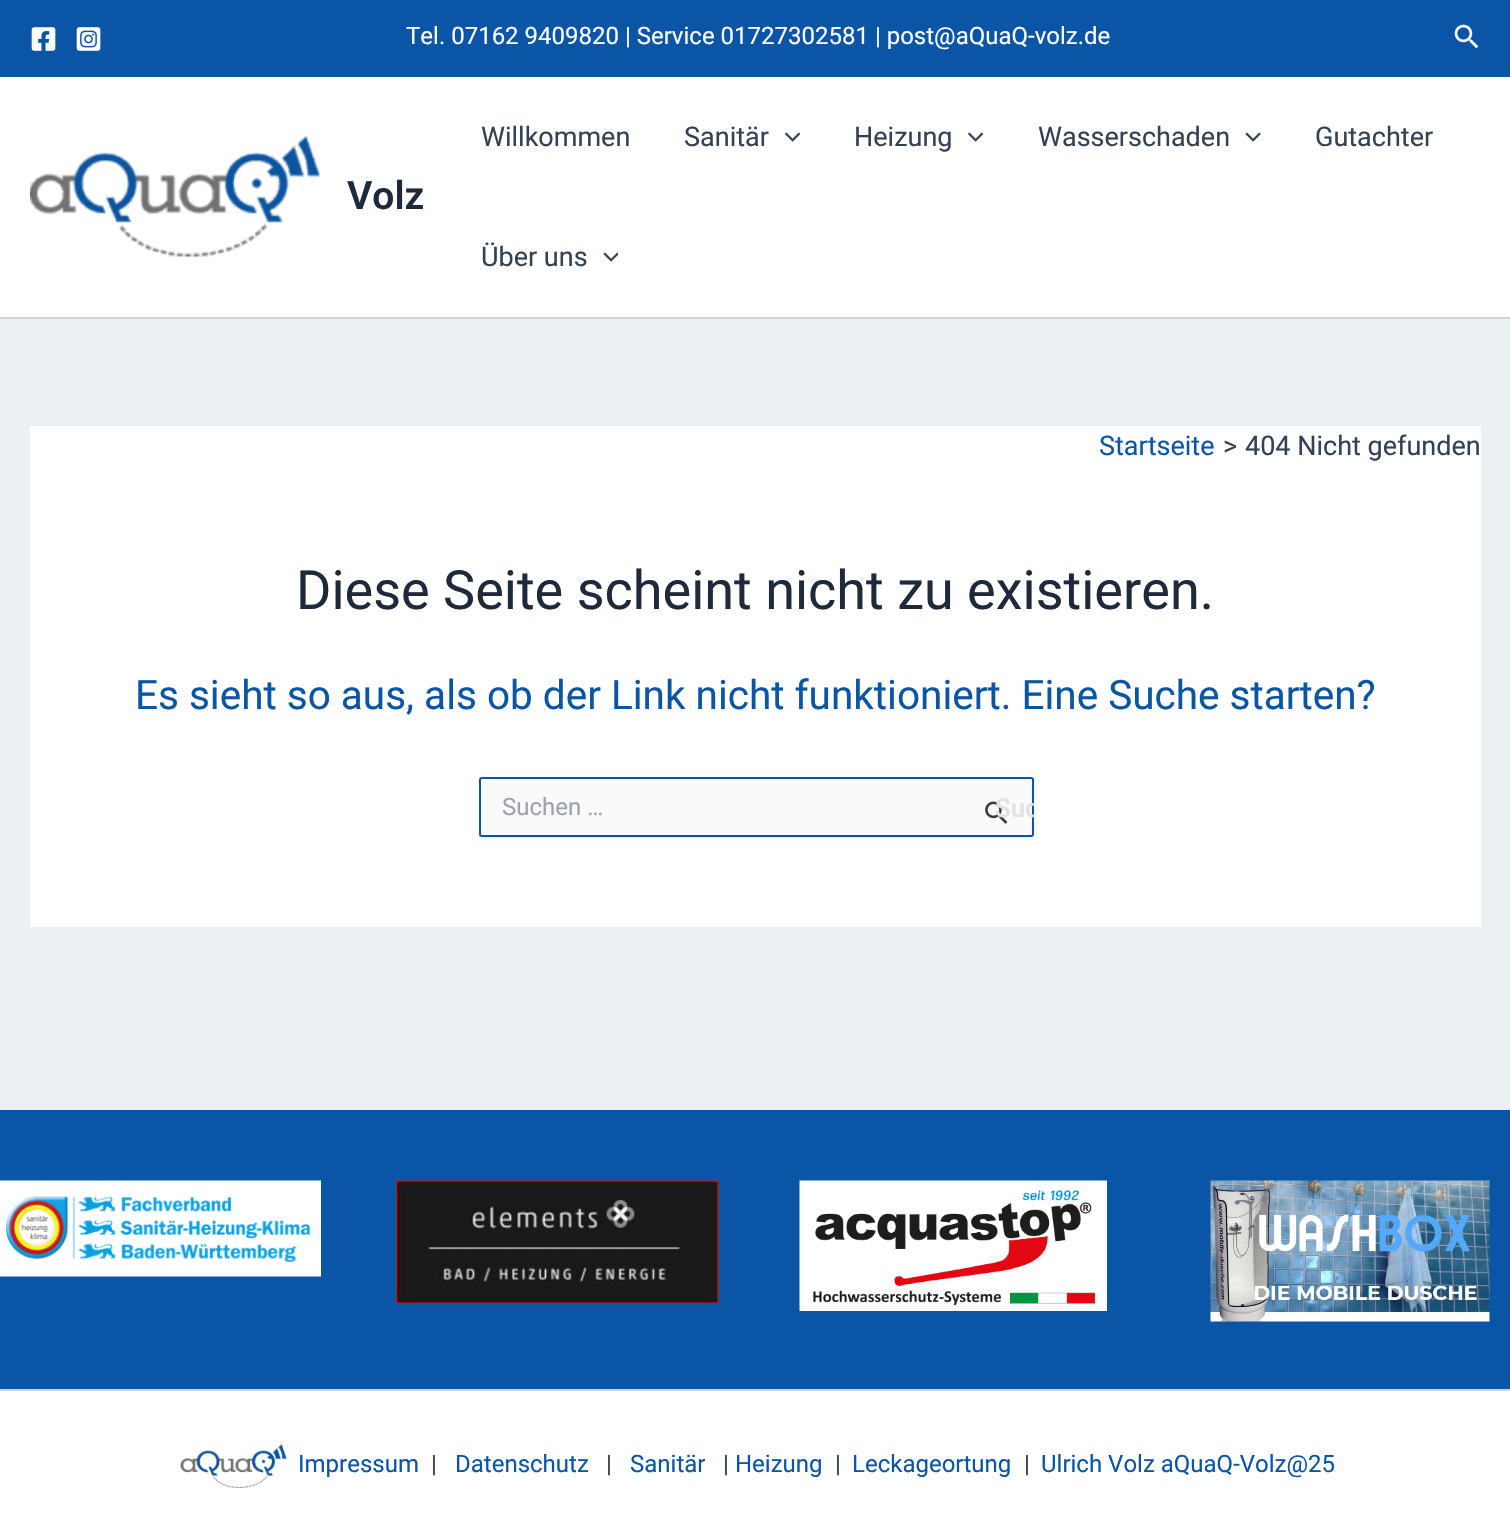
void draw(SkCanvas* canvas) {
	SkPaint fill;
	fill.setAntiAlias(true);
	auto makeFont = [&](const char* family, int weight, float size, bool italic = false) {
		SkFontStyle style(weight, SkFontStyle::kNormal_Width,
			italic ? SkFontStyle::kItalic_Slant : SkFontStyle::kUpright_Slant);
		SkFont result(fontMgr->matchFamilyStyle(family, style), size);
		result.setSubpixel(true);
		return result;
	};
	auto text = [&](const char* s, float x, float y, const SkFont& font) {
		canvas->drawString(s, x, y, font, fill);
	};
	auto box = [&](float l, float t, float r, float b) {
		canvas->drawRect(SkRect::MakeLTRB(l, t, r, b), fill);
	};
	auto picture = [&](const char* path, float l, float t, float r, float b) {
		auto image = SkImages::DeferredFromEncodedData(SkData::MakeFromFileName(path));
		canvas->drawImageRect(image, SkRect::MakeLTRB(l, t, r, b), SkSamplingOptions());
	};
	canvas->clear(0xFFEBF0F3);
	fill.setColor(0xFF0A55A5);
	box(0, 0, 1510, 77);
	picture("image0.png", 31, 27, 56, 51);
	picture("image1.png", 76, 27, 101, 51);
	picture("image2.png", 1454, 24, 1478, 49);
	fill.setColor(0xFFFFFFFF);
	box(0, 77, 1510, 317);
	fill.setColor(0xFFD1D5DB);
	box(0, 317, 1510, 319);
	picture("image3.png", 30, 136, 320, 257);
	picture("image4.png", 785, 132, 800, 142);
	picture("image5.png", 968, 132, 984, 142);
	picture("image6.png", 1245, 132, 1261, 142);
	picture("image7.png", 603, 252, 618, 262);
	fill.setColor(0xFFFFFFFF);
	box(30, 426, 1481, 927);
	fill.setColor(0x0D000000);
	fill.setMaskFilter(SkMaskFilter::MakeBlur(kNormal_SkBlurStyle, 1.5f));
	canvas->drawRoundRect(SkRect::MakeLTRB(479, 779, 1034, 839), 3, 3, fill);
	fill.setMaskFilter(nullptr);
	fill.setColor(0xFFFAFAFA);
	canvas->drawRoundRect(SkRect::MakeLTRB(480, 778, 1033, 836), 2, 2, fill);
	fill.setStyle(SkPaint::kStroke_Style);
	fill.setStrokeWidth(2);
	fill.setColor(0xFF0A55A5);
	canvas->drawRoundRect(SkRect::MakeLTRB(480, 778, 1033, 836), 2, 2, fill);
	picture("image8.png", 985, 801, 1008, 824);
	fill.setStyle(SkPaint::kFill_Style);
	box(0, 1110, 1510, 1389);
	picture("image9.png", 0, 1180, 321, 1277);
	picture("image10.png", 396, 1180, 719, 1304);
	picture("image11.png", 799, 1180, 1107, 1311);
	picture("image12.png", 1210, 1180, 1490, 1322);
	fill.setColor(0xFFFFFFFF);
	box(0, 1391, 1510, 1540);
	fill.setColor(0xFFD1D5DB);
	box(0, 1389, 1510, 1391);
	picture("image13.png", 180, 1444, 287, 1488);
	auto font1 = makeFont("Roboto", 400, 24);
	fill.setColor(0xFFFFFFFF);
	text("Tel. 07162 9409820 | Service 01727302581 | post@aQuaQ-volz.de", 406, 44, font1);
	auto font2 = makeFont("Roboto", 600, 39);
	fill.setColor(0xFF1E293B);
	text("Volz", 347, 209, font2);
	auto font3 = makeFont("Roboto", 400, 27);
	fill.setColor(0xFF334155);
	text("Willkommen", 481, 146, font3);
	text("Sanitär", 684, 146, font3);
	text("Heizung", 854, 146, font3);
	text("Wasserschaden", 1038, 146, font3);
	text("Gutachter", 1315, 146, font3);
	text("Über uns", 481, 266, font3);
	fill.setColor(0xFF0A55A5);
	text("Startseite", 1099, 455, font3);
	fill.setColor(0xFF334155);
	text(">", 1223, 455, font3);
	text("404 Nicht gefunden", 1245, 455, font3);
	auto font4 = makeFont("Roboto", 400, 54);
	fill.setColor(0xFF1E293B);
	text("Diese Seite scheint nicht zu existieren.", 296, 609, font4);
	auto font5 = makeFont("Roboto", 400, 40.5f);
	fill.setColor(0xFF0A55A5);
	text("Es sieht so aus, als ob der Link nicht funktioniert. Eine Suche starten?", 135, 709, font5);
	fill.setColor(0xFF9CA3AF);
	text("Suchen …", 502, 815, font1);
	canvas->save();
	canvas->clipPath(SkPathBuilder().moveTo(969, 777).lineTo(1031, 777).cubicTo(1032.5f, 777, 1034, 778.5f, 1034, 780).lineTo(1034, 839).cubicTo(1034, 840.5f, 1032.5f, 842, 1031, 842).lineTo(969, 842).cubicTo(967.5f, 842, 966, 840.5f, 966, 839).lineTo(966, 780).cubicTo(966, 778.5f, 967.5f, 777, 969, 777).close().detach(), true);
	auto font6 = makeFont("Roboto", 500, 26);
	fill.setColor(0xFFDFE2E5);
	text("Suc", 995, 817, font6);
	canvas->restore();
	fill.setColor(0xFF0A55A5);
	text("Impressum", 298, 1472, font1);
	fill.setColor(0xFF334155);
	text("|", 431, 1472, font1);
	fill.setColor(0xFF0A55A5);
	text("Datenschutz", 455, 1472, font1);
	fill.setColor(0xFF334155);
	text("|", 606, 1472, font1);
	fill.setColor(0xFF0A55A5);
	text("Sanitär", 630, 1472, font1);
	fill.setColor(0xFF334155);
	text("|", 723, 1472, font1);
	fill.setColor(0xFF0A55A5);
	text("Heizung", 735, 1472, font1);
	fill.setColor(0xFF334155);
	text("|", 835, 1472, font1);
	fill.setColor(0xFF0A55A5);
	text("Leckageortung", 852, 1472, font1);
	fill.setColor(0xFF334155);
	text("|", 1024, 1472, font1);
	fill.setColor(0xFF0A55A5);
	text("Ulrich Volz aQuaQ-Volz@25", 1041, 1472, font1);
}
